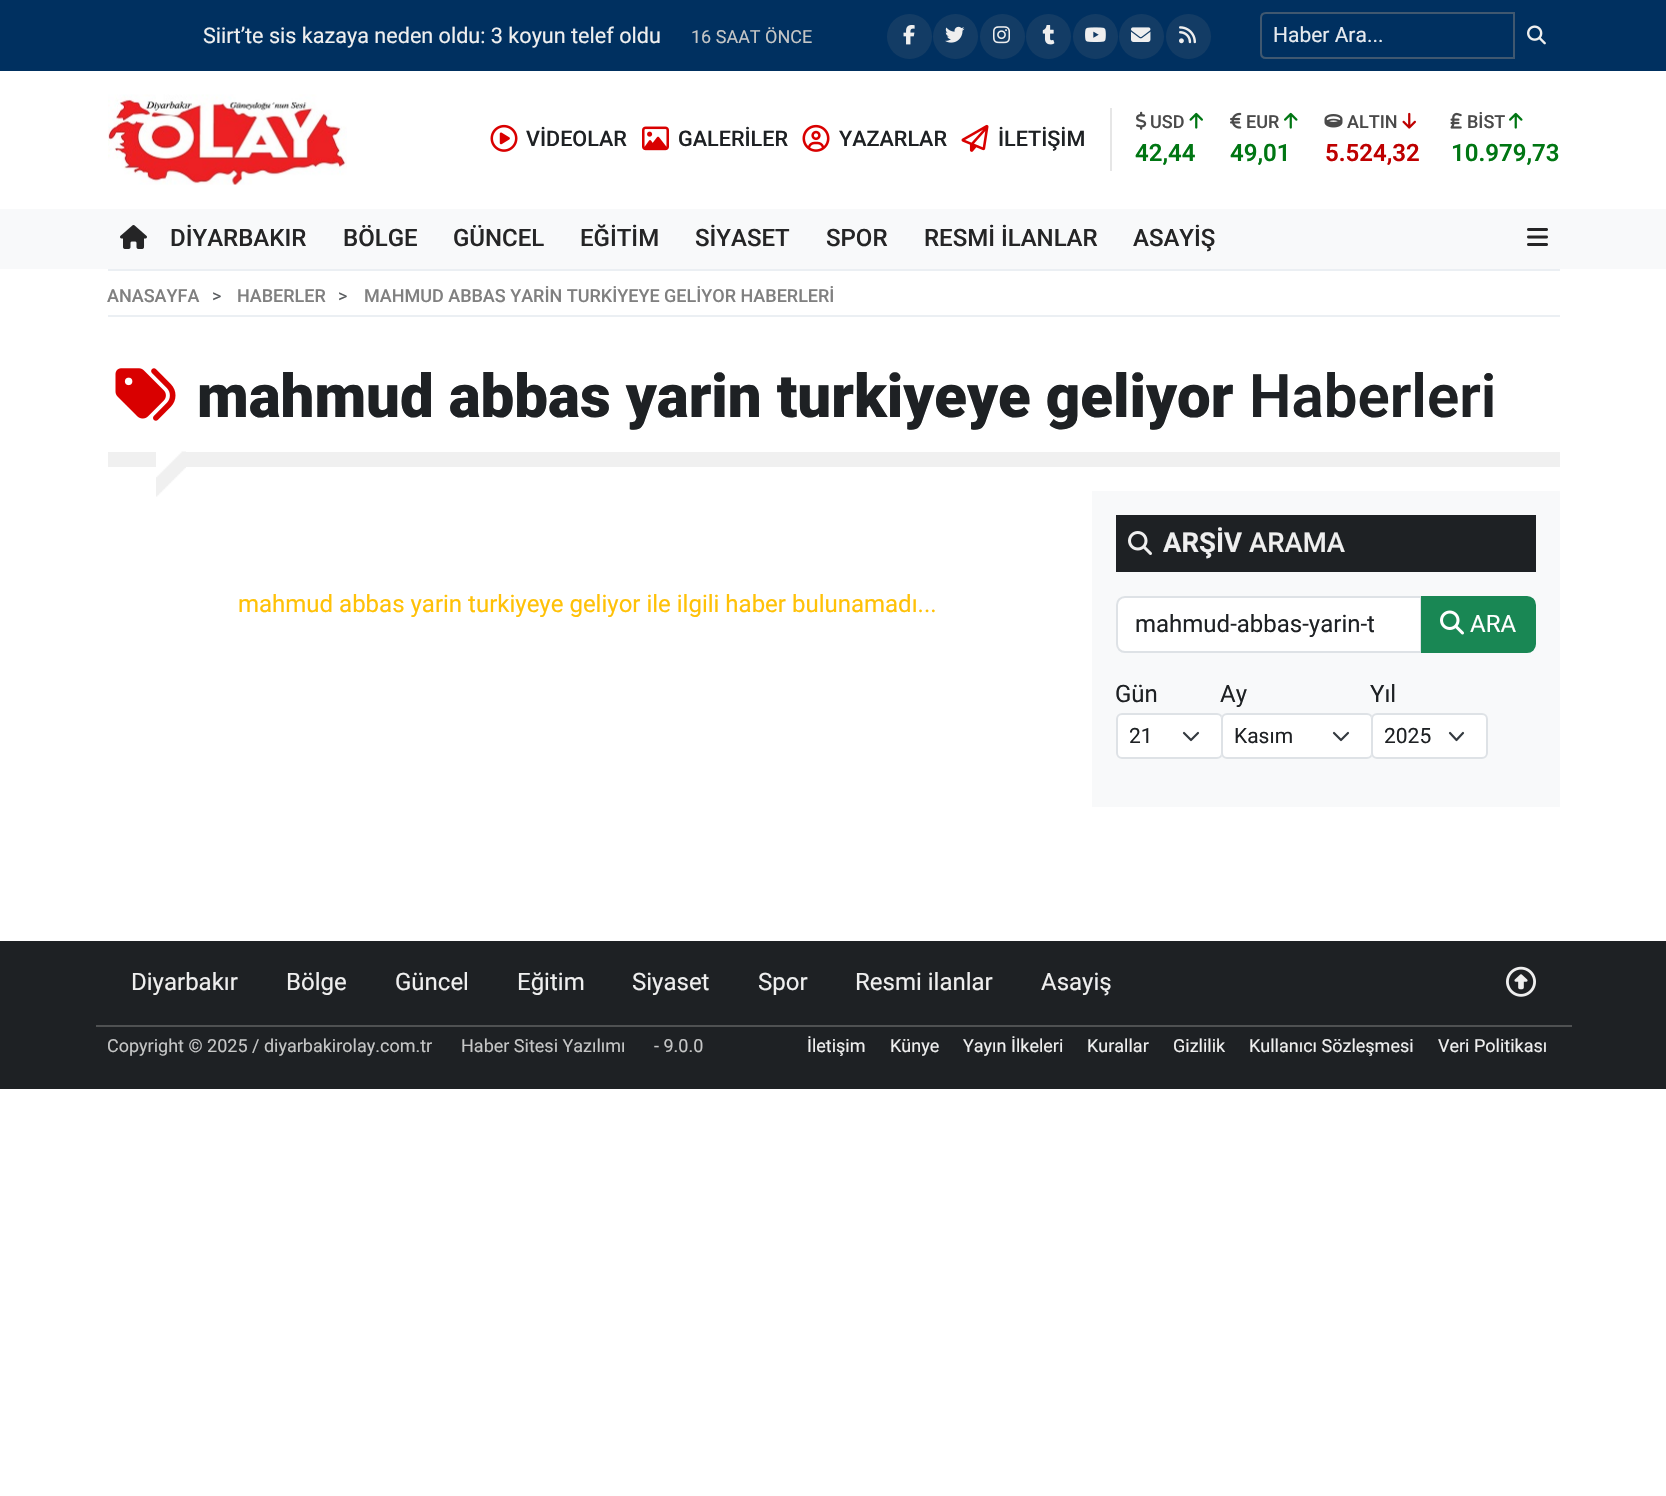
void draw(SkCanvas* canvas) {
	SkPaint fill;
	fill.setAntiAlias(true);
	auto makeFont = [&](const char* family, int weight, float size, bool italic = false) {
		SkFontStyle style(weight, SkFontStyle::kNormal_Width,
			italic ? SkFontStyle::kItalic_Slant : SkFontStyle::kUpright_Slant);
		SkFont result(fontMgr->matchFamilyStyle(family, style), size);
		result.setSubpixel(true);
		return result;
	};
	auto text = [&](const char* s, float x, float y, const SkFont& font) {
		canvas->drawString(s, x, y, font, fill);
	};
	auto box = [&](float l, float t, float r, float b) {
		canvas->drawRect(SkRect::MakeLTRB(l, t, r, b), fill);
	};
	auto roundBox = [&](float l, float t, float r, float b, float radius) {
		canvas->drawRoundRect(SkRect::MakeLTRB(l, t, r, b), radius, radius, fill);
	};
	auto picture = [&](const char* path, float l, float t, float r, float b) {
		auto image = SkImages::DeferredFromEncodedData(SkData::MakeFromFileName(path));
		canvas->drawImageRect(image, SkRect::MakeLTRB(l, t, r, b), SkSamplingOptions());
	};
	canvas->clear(0xFFFFFFFF);
	fill.setColor(0xFF003060);
	box(0, 0, 1666, 71);
	fill.setColor(0xFF133C65);
	canvas->drawCircle(909.5f, 36.5f, 22.5f, fill);
	picture("image0.png", 903, 25, 915, 45);
	canvas->drawCircle(955.5f, 36.5f, 22.5f, fill);
	picture("image1.png", 945, 26, 965, 43);
	canvas->drawCircle(1002.5f, 36.5f, 22.5f, fill);
	picture("image2.png", 993, 26, 1010, 44);
	canvas->drawCircle(1048.5f, 36.5f, 22.5f, fill);
	picture("image3.png", 1042, 25, 1055, 45);
	canvas->drawCircle(1095.5f, 36.5f, 22.5f, fill);
	picture("image4.png", 1085, 27, 1106, 42);
	canvas->drawCircle(1141.5f, 36.5f, 22.5f, fill);
	picture("image5.png", 1131, 27, 1151, 42);
	canvas->drawCircle(1188.5f, 36.5f, 22.5f, fill);
	picture("image6.png", 1179, 26, 1196, 44);
	fill.setStyle(SkPaint::kStroke_Style);
	fill.setStrokeWidth(2);
	fill.setColor(0xFF405870);
	canvas->drawPath(SkPathBuilder().moveTo(1266, 13).lineTo(1514, 13).lineTo(1514, 58).lineTo(1266, 58).cubicTo(1263, 58, 1261, 56, 1261, 53).lineTo(1261, 18).cubicTo(1261, 15, 1263, 13, 1266, 13).close().detach(), fill);
	picture("image7.png", 1527, 25, 1546, 45);
	picture("image8.png", 108, 94, 347, 185);
	picture("image9.png", 490, 124, 518, 152);
	picture("image10.png", 642, 126, 669, 151);
	picture("image11.png", 802, 124, 830, 152);
	picture("image12.png", 961, 124, 989, 152);
	fill.setStyle(SkPaint::kFill_Style);
	fill.setColor(0xFFE6E6E6);
	box(1110, 108, 1112, 171);
	picture("image13.png", 1136, 111, 1147, 130);
	picture("image14.png", 1189, 112, 1203, 129);
	picture("image15.png", 1230, 112, 1242, 129);
	picture("image16.png", 1284, 112, 1298, 129);
	picture("image17.png", 1324, 114, 1343, 128);
	picture("image18.png", 1402, 112, 1416, 129);
	picture("image19.png", 1450, 112, 1462, 129);
	picture("image16.png", 1509, 112, 1523, 129);
	fill.setColor(0xFFF8F9FA);
	box(0, 209, 1666, 269);
	picture("image20.png", 120, 225, 147, 249);
	picture("image21.png", 1527, 228, 1548, 246);
	fill.setColor(0xFFEBEFF3);
	box(108, 269, 1560, 271);
	box(108, 315, 1560, 317);
	picture("image22.png", 115, 368, 176, 421);
	fill.setColor(0xFFF0F0F0);
	box(108, 452, 1560, 467);
	picture("image23.png", 156, 451, 186, 497);
	fill.setColor(0xFFF8F9FA);
	box(1092, 491, 1560, 807);
	fill.setColor(0xFF1E2124);
	box(1116, 515, 1536, 572);
	picture("image24.png", 1128, 531, 1152, 555);
	fill.setColor(0xFFFFFFFF);
	canvas->drawPath(SkPathBuilder().moveTo(1125, 597).lineTo(1421, 597).lineTo(1421, 652).lineTo(1125, 652).cubicTo(1120.5f, 652, 1117, 648.5f, 1117, 644).lineTo(1117, 605).cubicTo(1117, 600.5f, 1120.5f, 597, 1125, 597).close().detach(), fill);
	fill.setStyle(SkPaint::kStroke_Style);
	fill.setColor(0xFFDEE2E6);
	canvas->drawPath(SkPathBuilder().moveTo(1125, 597).lineTo(1421, 597).lineTo(1421, 652).lineTo(1125, 652).cubicTo(1120.5f, 652, 1117, 648.5f, 1117, 644).lineTo(1117, 605).cubicTo(1117, 600.5f, 1120.5f, 597, 1125, 597).close().detach(), fill);
	fill.setStyle(SkPaint::kFill_Style);
	fill.setColor(0xFF198754);
	canvas->drawPath(SkPathBuilder().moveTo(1422, 597).lineTo(1527, 597).cubicTo(1531.5f, 597, 1535, 600.5f, 1535, 605).lineTo(1535, 644).cubicTo(1535, 648.5f, 1531.5f, 652, 1527, 652).lineTo(1422, 652).close().detach(), fill);
	fill.setStyle(SkPaint::kStroke_Style);
	canvas->drawPath(SkPathBuilder().moveTo(1422, 597).lineTo(1527, 597).cubicTo(1531.5f, 597, 1535, 600.5f, 1535, 605).lineTo(1535, 644).cubicTo(1535, 648.5f, 1531.5f, 652, 1527, 652).lineTo(1422, 652).close().detach(), fill);
	picture("image25.png", 1440, 610, 1464, 635);
	fill.setStyle(SkPaint::kFill_Style);
	fill.setColor(0xFFFFFFFF);
	roundBox(1116, 713, 1223, 759, 6);
	fill.setStyle(SkPaint::kStroke_Style);
	fill.setStrokeWidth(2.2f);
	fill.setStrokeCap(SkPaint::kRound_Cap);
	fill.setStrokeJoin(SkPaint::kRound_Join);
	fill.setColor(0xFF343A40);
	canvas->drawPath(SkPathBuilder().moveTo(1184, 733).lineTo(1191, 740).lineTo(1198, 733).detach(), fill);
	fill.setStrokeWidth(2);
	fill.setStrokeCap(SkPaint::kButt_Cap);
	fill.setStrokeJoin(SkPaint::kMiter_Join);
	fill.setColor(0xFFDEE2E6);
	canvas->drawRoundRect(SkRect::MakeLTRB(1117, 714, 1222, 758), 5, 5, fill);
	fill.setStyle(SkPaint::kFill_Style);
	fill.setColor(0xFFFFFFFF);
	roundBox(1221, 713, 1373, 759, 6);
	fill.setStyle(SkPaint::kStroke_Style);
	fill.setStrokeWidth(2.2f);
	fill.setStrokeCap(SkPaint::kRound_Cap);
	fill.setStrokeJoin(SkPaint::kRound_Join);
	fill.setColor(0xFF343A40);
	canvas->drawPath(SkPathBuilder().moveTo(1334, 733).lineTo(1341, 740).lineTo(1348, 733).detach(), fill);
	fill.setStrokeWidth(2);
	fill.setStrokeCap(SkPaint::kButt_Cap);
	fill.setStrokeJoin(SkPaint::kMiter_Join);
	fill.setColor(0xFFDEE2E6);
	canvas->drawRoundRect(SkRect::MakeLTRB(1222, 714, 1372, 758), 5, 5, fill);
	fill.setStyle(SkPaint::kFill_Style);
	fill.setColor(0xFFFFFFFF);
	roundBox(1371, 713, 1488, 759, 6);
	fill.setStyle(SkPaint::kStroke_Style);
	fill.setStrokeWidth(2.2f);
	fill.setStrokeCap(SkPaint::kRound_Cap);
	fill.setStrokeJoin(SkPaint::kRound_Join);
	fill.setColor(0xFF343A40);
	canvas->drawPath(SkPathBuilder().moveTo(1450, 733).lineTo(1456.5f, 740).lineTo(1463, 733).detach(), fill);
	fill.setStrokeWidth(2);
	fill.setStrokeCap(SkPaint::kButt_Cap);
	fill.setStrokeJoin(SkPaint::kMiter_Join);
	fill.setColor(0xFFDEE2E6);
	canvas->drawRoundRect(SkRect::MakeLTRB(1372, 714, 1487, 758), 5, 5, fill);
	fill.setStyle(SkPaint::kFill_Style);
	fill.setColor(0xFF1E2124);
	box(0, 941, 1666, 1089);
	fill.setColor(0xFF4F5152);
	box(96, 1025, 1572, 1027);
	picture("image26.png", 1506, 966, 1536, 997);
	auto font1 = makeFont("Roboto", 400, 21.6f);
	fill.setColor(0xFFEFEFEF);
	text("Siirt’te sis kazaya neden oldu: 3 koyun telef oldu", 203, 43, font1);
	auto font2 = makeFont("Roboto", 400, 18);
	fill.setColor(0xFFC5C6C6);
	text("16 SAAT ÖNCE", 691, 43, font2);
	auto font3 = makeFont("Roboto", 400, 21);
	fill.setColor(0xFFE6EAEF);
	text("Haber Ara...", 1273, 42, font3);
	auto font4 = makeFont("Roboto", 500, 21.6f);
	fill.setColor(0xFF1E2124);
	text("VİDEOLAR", 526, 146, font4);
	text("GALERİLER", 678, 146, font4);
	text("YAZARLAR", 839, 146, font4);
	text("İLETİŞİM", 998, 146, font4);
	auto font5 = makeFont("Roboto", 500, 18);
	fill.setColor(0xFF4A4A4A);
	text("USD", 1150, 128, font5);
	auto font6 = makeFont("Roboto", 600, 24);
	fill.setColor(0xFF007613);
	text("42,44", 1135, 161, font6);
	fill.setColor(0xFF4A4A4A);
	text("EUR", 1246, 128, font5);
	fill.setColor(0xFF007613);
	text("49,01", 1230, 161, font6);
	fill.setColor(0xFF4A4A4A);
	text("ALTIN", 1347, 128, font5);
	fill.setColor(0xFFBE0000);
	text("5.524,32", 1325, 161, font6);
	fill.setColor(0xFF4A4A4A);
	text("BİST", 1467, 128, font5);
	fill.setColor(0xFF007613);
	text("10.979,73", 1451, 161, font6);
	auto font7 = makeFont("Roboto", 500, 24);
	fill.setColor(0xFF252526);
	text("DİYARBAKIR", 170, 246, font7);
	text("BÖLGE", 343, 246, font7);
	text("GÜNCEL", 453, 246, font7);
	text("EĞİTİM", 580, 246, font7);
	text("SİYASET", 695, 246, font7);
	text("SPOR", 826, 246, font7);
	text("RESMİ İLANLAR", 924, 246, font7);
	text("ASAYİŞ", 1133, 246, font7);
	fill.setColor(0xFF808080);
	text("ANASAYFA", 107, 302, font5);
	fill.setColor(0xFF595C5F);
	text(">", 212, 302, font2);
	fill.setColor(0xFF808080);
	text("HABERLER", 237, 302, font5);
	fill.setColor(0xFF595C5F);
	text(">", 338, 302, font2);
	fill.setColor(0xFF808080);
	text("MAHMUD ABBAS YARİN TURKİYEYE GELİYOR HABERLERİ", 364, 302, font5);
	auto font8 = makeFont("Roboto", 900, 60);
	fill.setColor(0xFF1E2124);
	text("mahmud abbas yarin turkiyeye geliyor", 197, 417, font8);
	auto font9 = makeFont("Roboto", 600, 60);
	text("Haberleri", 1249, 417, font9);
	auto font10 = makeFont("Roboto", 400, 24);
	fill.setColor(0xFFFFC107);
	text("mahmud abbas yarin turkiyeye geliyor ile ilgili haber bulunamadı...", 238, 612, font10);
	auto font11 = makeFont("Roboto", 700, 27.5f);
	fill.setColor(0xFFEFEFEF);
	text("ARŞİV", 1163, 552, font11);
	auto font12 = makeFont("Roboto", 500, 27.5f);
	text("ARAMA", 1249, 552, font12);
	fill.setColor(0xFF1E2124);
	text("mahmud-abbas-yarin-t", 1135, 632, font10);
	fill.setColor(0xFFFFFFFF);
	text("ARA", 1470, 632, font10);
	fill.setColor(0xFF1E2124);
	text("Gün", 1115, 702, font10);
	text("21", 1129, 743, font3);
	text("Ay", 1220, 702, font10);
	text("Kasım", 1234, 743, font3);
	text("Yıl", 1370, 702, font10);
	text("2025", 1384, 743, font3);
	fill.setColor(0xFFEFEFEF);
	text("Diyarbakır", 131, 990, font10);
	text("Bölge", 286, 990, font10);
	text("Güncel", 395, 990, font10);
	text("Eğitim", 517, 990, font10);
	text("Siyaset", 632, 990, font10);
	text("Spor", 758, 990, font10);
	text("Resmi ilanlar", 855, 990, font10);
	text("Asayiş", 1041, 990, font10);
	fill.setColor(0xFFC5C6C6);
	text("Copyright © 2025 / diyarbakirolay.com.tr", 107, 1052, font2);
	text("Haber Sitesi Yazılımı", 461, 1052, font2);
	text("- 9.0.0", 654, 1052, font2);
	fill.setColor(0xFFEFEFEF);
	text("İletişim", 807, 1052, font2);
	text("Künye", 890, 1052, font2);
	text("Yayın İlkeleri", 963, 1052, font2);
	text("Kurallar", 1087, 1052, font2);
	text("Gizlilik", 1173, 1052, font2);
	text("Kullanıcı Sözleşmesi", 1249, 1052, font2);
	text("Veri Politikası", 1438, 1052, font2);
}
